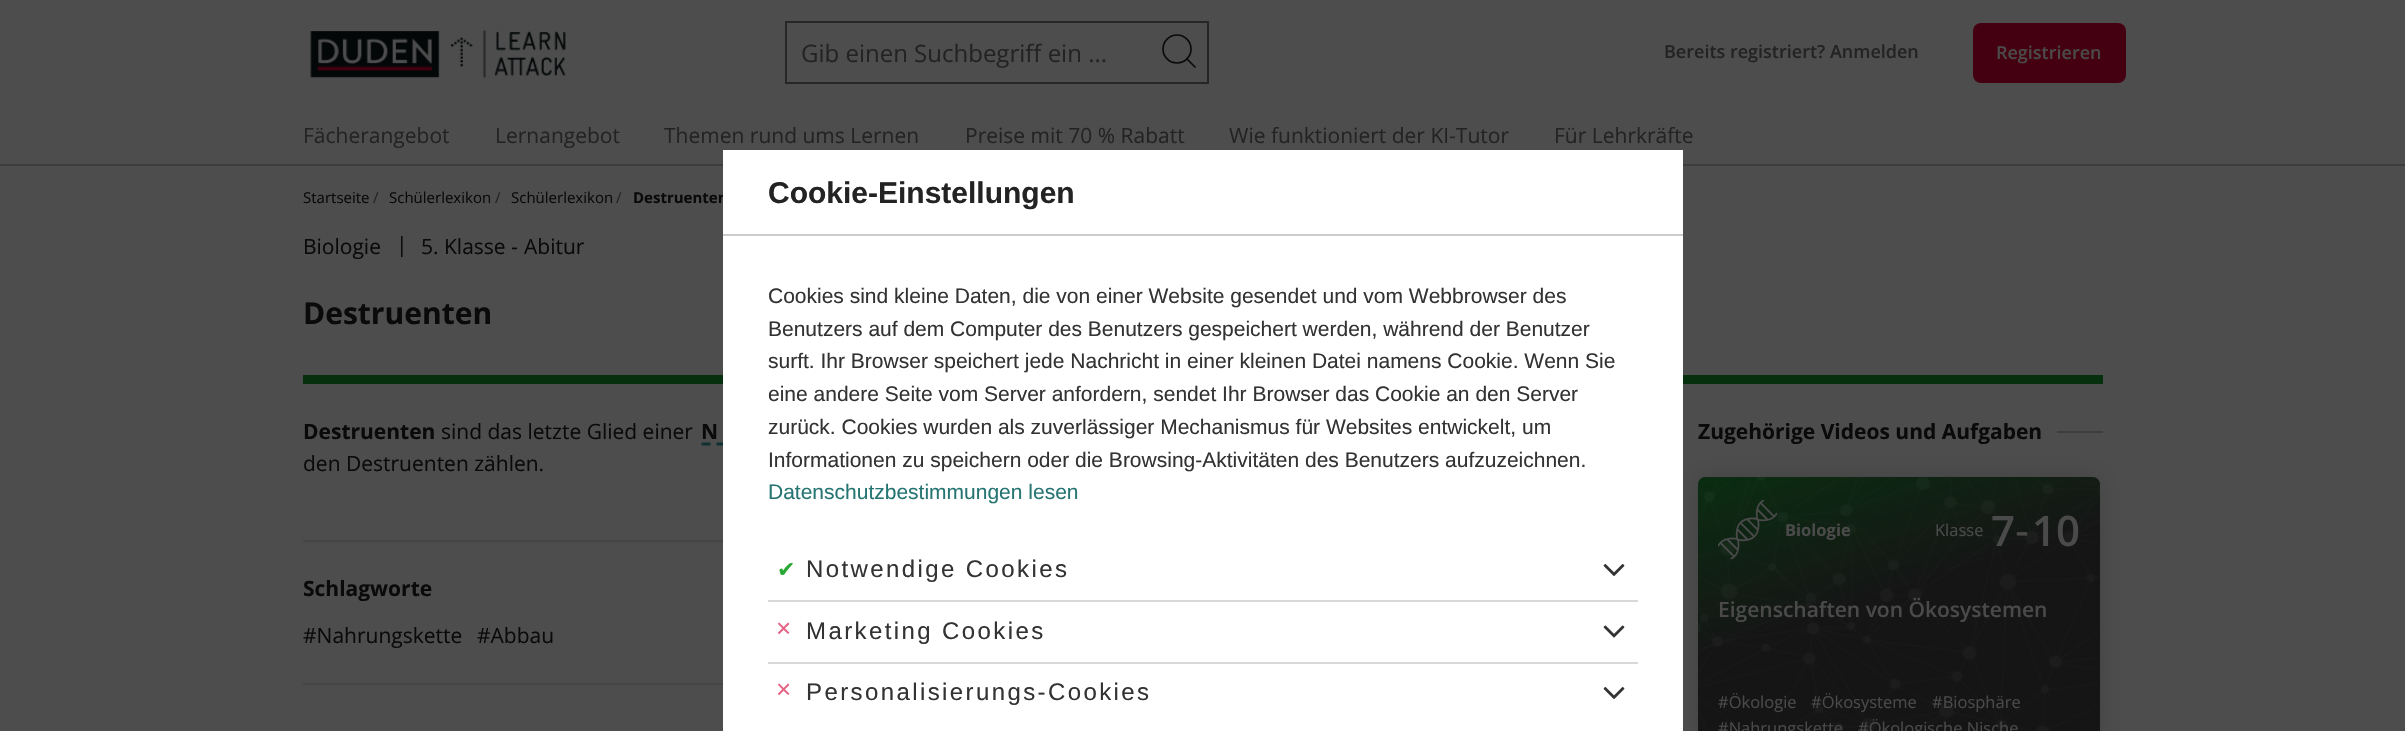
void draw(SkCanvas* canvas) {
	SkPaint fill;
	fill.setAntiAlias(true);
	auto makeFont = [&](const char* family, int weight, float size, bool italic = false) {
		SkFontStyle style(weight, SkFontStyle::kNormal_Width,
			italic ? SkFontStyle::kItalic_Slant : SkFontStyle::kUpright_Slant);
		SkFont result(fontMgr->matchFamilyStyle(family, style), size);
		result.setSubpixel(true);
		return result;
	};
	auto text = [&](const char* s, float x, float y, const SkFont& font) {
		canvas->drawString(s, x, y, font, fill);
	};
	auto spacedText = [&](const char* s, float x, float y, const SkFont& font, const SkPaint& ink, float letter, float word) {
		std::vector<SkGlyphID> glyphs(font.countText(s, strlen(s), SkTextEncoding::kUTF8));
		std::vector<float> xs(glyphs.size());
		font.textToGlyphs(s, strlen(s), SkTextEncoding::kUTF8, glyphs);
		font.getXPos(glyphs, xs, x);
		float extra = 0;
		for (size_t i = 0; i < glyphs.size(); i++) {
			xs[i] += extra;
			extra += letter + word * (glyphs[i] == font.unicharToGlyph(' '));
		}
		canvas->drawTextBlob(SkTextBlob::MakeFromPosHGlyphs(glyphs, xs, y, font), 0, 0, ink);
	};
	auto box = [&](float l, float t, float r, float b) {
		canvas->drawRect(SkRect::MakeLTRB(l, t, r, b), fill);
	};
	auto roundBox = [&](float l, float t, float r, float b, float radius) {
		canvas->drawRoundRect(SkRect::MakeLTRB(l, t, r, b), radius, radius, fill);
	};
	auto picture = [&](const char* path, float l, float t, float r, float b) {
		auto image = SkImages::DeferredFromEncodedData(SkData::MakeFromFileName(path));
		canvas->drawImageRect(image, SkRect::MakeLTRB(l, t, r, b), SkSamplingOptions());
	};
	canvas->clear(0xFF4D4D4D);
	fill.setColor(0xFF3D3D3D);
	box(0, 164, 2405, 166);
	picture("image0.png", 310, 30, 566, 78);
	fill.setStyle(SkPaint::kStroke_Style);
	fill.setStrokeWidth(2);
	fill.setColor(0xFF262626);
	canvas->drawRect(SkRect::MakeLTRB(786, 22, 1208, 83), fill);
	fill.setStrokeWidth(1.7f);
	fill.setColor(0xFF0A0A0A);
	canvas->drawCircle(1177, 49, 14, fill);
	canvas->drawPath(SkPathBuilder().moveTo(1195.5f, 67.5f).lineTo(1186.5f, 58.5f).detach(), fill);
	fill.setStyle(SkPaint::kFill_Style);
	fill.setColor(0xFF440011);
	roundBox(1973, 23, 2126, 83, 8);
	fill.setColor(0xFF062F0E);
	box(303, 375, 2103, 384);
	fill.setStyle(SkPaint::kStroke_Style);
	fill.setStrokeWidth(3);
	fill.setColor(0xFF103130);
	fill.setPathEffect(SkDashPathEffect::Make({{9, 6}}, 0));
	canvas->drawPath(SkPathBuilder().moveTo(701.5f, 444).lineTo(860.5f, 444).detach(), fill);
	fill.setPathEffect(nullptr);
	fill.setStyle(SkPaint::kFill_Style);
	fill.setColor(0xFF454545);
	box(303, 540, 723, 542);
	box(303, 683, 723, 685);
	fill.setColor(0xFF3D3D3D);
	box(2057, 431, 2103, 433);
	fill.setColor(0x21000000);
	fill.setMaskFilter(SkMaskFilter::MakeBlur(kNormal_SkBlurStyle, 11));
	canvas->drawRoundRect(SkRect::MakeLTRB(1698, 477, 2100, 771), 8, 8, fill);
	fill.setMaskFilter(nullptr);
	picture("image1.png", 1698, 477, 2100, 731);
	{
		const SkColor colors[] = {0xD9062F0E, 0xD9131313};
		const float stops[] = {0, 0.42f};
		const SkPoint ends[] = {{1837, 432}, {1961, 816}};
		fill.setShader(SkGradientShader::MakeLinear(ends, colors, stops, 2, SkTileMode::kClamp));
		fill.setAlpha(255);
	}
	canvas->drawPath(SkPathBuilder().moveTo(1706, 477).lineTo(2092, 477).cubicTo(2096.5f, 477, 2100, 480.5f, 2100, 485).lineTo(2100, 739).lineTo(1698, 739).lineTo(1698, 485).cubicTo(1698, 480.5f, 1701.5f, 477, 1706, 477).close().detach(), fill);
	picture("image2.png", 1718, 500, 1778, 560);
	auto font1 = makeFont("Open Sans", 400, 24);
	fill.setShader(nullptr);
	fill.setColor(0xFF232323);
	text("Gib einen Suchbegriff ein ...", 801, 62, font1);
	auto font2 = makeFont("Open Sans", 600, 18);
	text("Bereits registriert? Anmelden", 1664, 58, font2);
	fill.setColor(0xFF4A4A4A);
	text("Registrieren", 1996, 59, font2);
	auto font3 = makeFont("Open Sans", 400, 21);
	fill.setColor(0xFF232323);
	text("Fächerangebot", 303, 143, font3);
	text("Lernangebot", 495, 143, font3);
	text("Themen rund ums Lernen", 664, 143, font3);
	text("Preise mit 70 % Rabatt", 965, 143, font3);
	text("Wie funktioniert der KI-Tutor", 1229, 143, font3);
	text("Für Lehrkräfte", 1554, 143, font3);
	auto font4 = makeFont("Open Sans", 400, 15);
	fill.setColor(0xFF0A0A0A);
	text("Startseite", 303, 203, font4);
	fill.setColor(0xFF232323);
	text("/", 373, 203, font4);
	fill.setColor(0xFF0A0A0A);
	text("Schülerlexikon", 389, 203, font4);
	fill.setColor(0xFF232323);
	text("/", 495, 203, font4);
	fill.setColor(0xFF0A0A0A);
	text("Schülerlexikon", 511, 203, font4);
	fill.setColor(0xFF232323);
	text("/", 616, 203, font4);
	auto font5 = makeFont("Open Sans", 700, 15);
	fill.setColor(0xFF0A0A0A);
	text("Destruenten", 633, 203, font5);
	text("Biologie", 303, 254, font3);
	text("|", 396, 252, font3);
	text("5. Klasse", 421, 254, font3);
	auto font6 = makeFont("Liberation Sans", 400, 21);
	text("‐", 511, 254, font6);
	text("Abitur", 524, 254, font3);
	auto font7 = makeFont("Open Sans", 700, 30);
	text("Destruenten", 303, 324, font7);
	auto font8 = makeFont("Open Sans", 700, 21);
	text("Destruenten", 303, 439, font8);
	text("sind das letzte Glied einer", 441, 439, font3);
	text("N", 701, 439, font8);
	text("den Destruenten zählen.", 303, 471, font3);
	text("Schlagworte", 303, 596, font8);
	text("#Nahrungskette", 303, 643, font3);
	text("#Abbau", 477, 643, font3);
	text("Zugehörige Videos und Aufgaben", 1698, 439, font8);
	auto font9 = makeFont("Open Sans", 700, 16.5f);
	fill.setColor(0xFF4A4A4A);
	text("Biologie", 1785, 536, font9);
	auto font10 = makeFont("Open Sans", 400, 16.5f);
	text("Klasse", 1935, 536, font10);
	auto font11 = makeFont("Open Sans", 600, 42);
	text("7", 1991, 546, font11);
	auto font12 = makeFont("Liberation Sans", 400, 42);
	text("‐", 2015, 545, font12);
	text("10", 2032, 546, font11);
	auto font13 = makeFont("Open Sans", 600, 21);
	text("Eigenschaften von Ökosystemen", 1718, 617, font13);
	text("#Ökologie", 1718, 708, font10);
	text("#Ökosysteme", 1811, 708, font10);
	text("#Biosphäre", 1932, 708, font10);
	text("#Nahrungskette", 1718, 734, font10);
	text("#Ökologische Nische", 1858, 734, font10);
	fill.setColor(0xFFFFFFFF);
	box(723, 150, 1683, 731);
	fill.setColor(0xFFCCCCCC);
	box(723, 234, 1683, 236);
	auto font14 = makeFont("Liberation Sans", 700, 30);
	fill.setColor(0xFF232323);
	text("Cookie-Einstellungen", 768, 203, font14);
	fill.setColor(0xFF333333);
	text("Cookies sind kleine Daten, die von einer Website gesendet und vom Webbrowser des", 768, 303, font6);
	text("Benutzers auf dem Computer des Benutzers gespeichert werden, während der Benutzer", 768, 336, font6);
	text("surft. Ihr Browser speichert jede Nachricht in einer kleinen Datei namens Cookie. Wenn Sie", 768, 368, font6);
	text("eine andere Seite vom Server anfordern, sendet Ihr Browser das Cookie an den Server", 768, 401, font6);
	text("zurück. Cookies wurden als zuverlässiger Mechanismus für Websites entwickelt, um", 768, 434, font6);
	text("Informationen zu speichern oder die Browsing-Aktivitäten des Benutzers aufzuzeichnen.", 768, 467, font6);
	fill.setColor(0xFF267572);
	text("Datenschutzbestimmungen lesen", 768, 499, font6);
	auto font15 = makeFont("DejaVu Sans", 400, 22);
	fill.setColor(0xFF28A834);
	spacedText("✔", 777, 577, font15, fill, 2.4f, 0);
	auto font16 = makeFont("Liberation Sans", 400, 24);
	fill.setColor(0xFF333333);
	spacedText("Notwendige Cookies", 806, 577, font16, fill, 2.4f, 0);
	picture("image3.png", 1603, 564, 1625, 576);
	fill.setColor(0xFFD8D8D8);
	box(768, 600, 1638, 602);
	auto font17 = makeFont("Liberation Sans", 400, 26);
	fill.setColor(0xFFE56385);
	spacedText("×", 776, 637, font17, fill, 2.4f, 0);
	fill.setColor(0xFF333333);
	spacedText("Marketing Cookies", 806, 639, font16, fill, 2.4f, 0);
	picture("image4.png", 1603, 625, 1625, 638);
	fill.setColor(0xFFD8D8D8);
	box(768, 662, 1638, 664);
	fill.setColor(0xFFE56385);
	spacedText("×", 776, 698, font17, fill, 2.4f, 0);
	fill.setColor(0xFF333333);
	spacedText("Personalisierungs-Cookies", 806, 700, font16, fill, 2.4f, 0);
	picture("image3.png", 1603, 687, 1625, 699);
}
